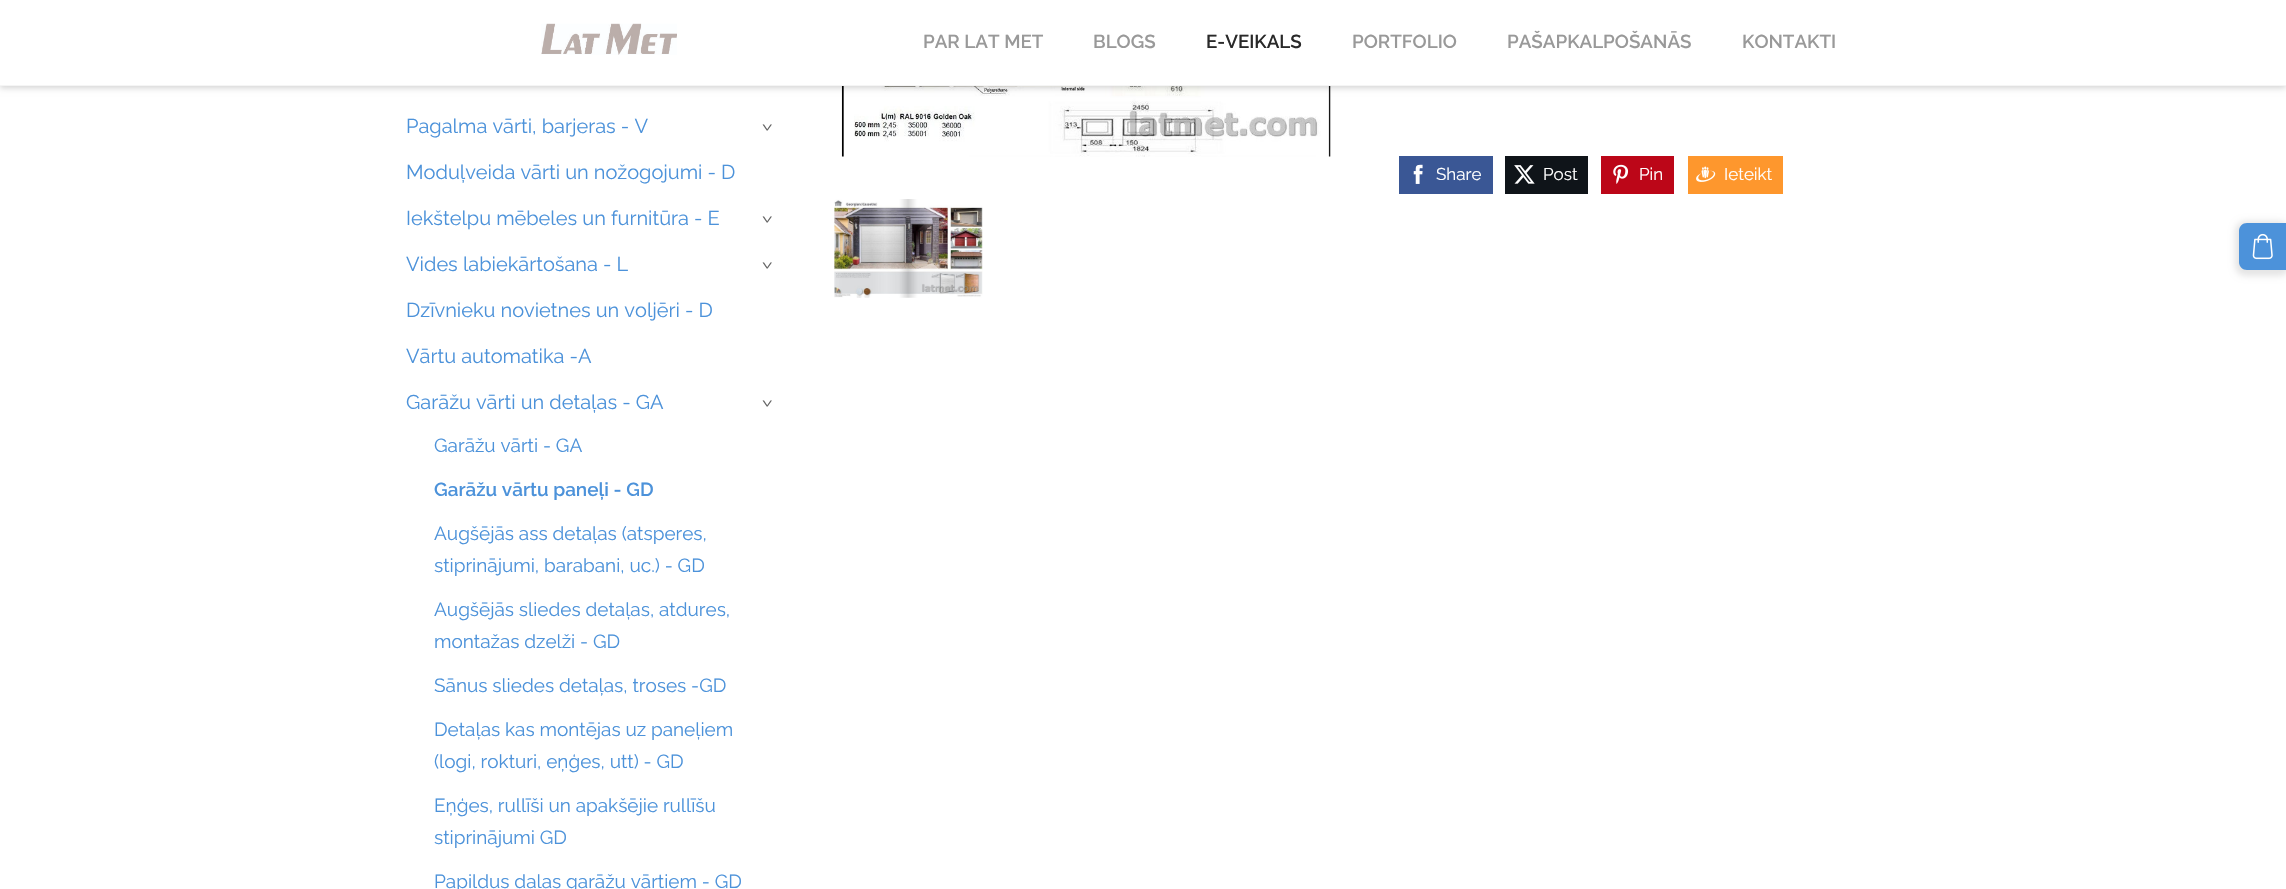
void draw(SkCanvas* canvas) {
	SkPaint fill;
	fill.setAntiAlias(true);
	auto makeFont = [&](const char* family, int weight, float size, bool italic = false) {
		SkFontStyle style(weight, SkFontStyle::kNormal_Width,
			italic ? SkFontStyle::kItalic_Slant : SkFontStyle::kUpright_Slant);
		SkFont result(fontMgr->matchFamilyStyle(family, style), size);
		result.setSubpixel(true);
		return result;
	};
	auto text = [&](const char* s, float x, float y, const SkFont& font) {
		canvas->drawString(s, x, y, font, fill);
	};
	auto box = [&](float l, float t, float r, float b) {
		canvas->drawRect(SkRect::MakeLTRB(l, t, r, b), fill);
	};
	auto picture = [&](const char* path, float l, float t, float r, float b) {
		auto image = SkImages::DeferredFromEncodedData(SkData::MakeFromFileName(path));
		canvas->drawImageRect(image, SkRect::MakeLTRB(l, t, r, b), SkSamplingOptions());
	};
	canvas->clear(0xFFFFFFFF);
	picture("image1.png", 841, 86, 1331, 157);
	fill.setColor(0x2B000000);
	fill.setMaskFilter(SkMaskFilter::MakeBlur(kNormal_SkBlurStyle, 3));
	canvas->drawRect(SkRect::MakeLTRB(0, 1, 2286, 88), fill);
	fill.setMaskFilter(nullptr);
	fill.setColor(0xFFFFFFFF);
	box(0, 0, 2286, 85);
	fill.setColor(0xFFF5F5F5);
	box(0, 85, 2286, 86);
	picture("image0.png", 541, 23, 677, 55);
	picture("image2.png", 834, 199, 983, 298);
	fill.setColor(0xFF3A5795);
	box(1399, 156, 1493, 194);
	picture("image3.png", 1413, 164, 1423, 184);
	fill.setColor(0xFF0F1419);
	box(1505, 156, 1588, 194);
	picture("image4.png", 1514, 165, 1535, 184);
	fill.setColor(0xFFBC0618);
	box(1601, 156, 1674, 194);
	picture("image5.png", 1613, 164, 1629, 184);
	fill.setColor(0xFFFE972D);
	box(1688, 156, 1783, 194);
	picture("image6.png", 1696, 166, 1716, 182);
	fill.setColor(0x1A000000);
	fill.setMaskFilter(SkMaskFilter::MakeBlur(kNormal_SkBlurStyle, 3));
	canvas->drawRoundRect(SkRect::MakeLTRB(2235, 221, 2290, 276), 11, 11, fill);
	fill.setMaskFilter(nullptr);
	fill.setColor(0xFF4C92DA);
	canvas->drawPath(SkPathBuilder().moveTo(2247, 223).lineTo(2286, 223).lineTo(2286, 270).lineTo(2247, 270).cubicTo(2242.5f, 270, 2239, 266.5f, 2239, 262).lineTo(2239, 231).cubicTo(2239, 226.5f, 2242.5f, 223, 2247, 223).close().detach(), fill);
	picture("image7.png", 2252, 233, 2273, 260);
	auto font1 = makeFont("Raleway", 600, 18.75f);
	fill.setColor(0xFF999999);
	text("PAR LAT MET", 923, 48, font1);
	text("BLOGS", 1093, 48, font1);
	fill.setColor(0xFF292929);
	text("E-VEIKALS", 1206, 48, font1);
	fill.setColor(0xFF999999);
	text("PORTFOLIO", 1352, 48, font1);
	text("PAŠAPKALPOŠANĀS", 1507, 48, font1);
	text("KONTAKTI", 1742, 48, font1);
	auto font2 = makeFont("Raleway", 400, 20);
	fill.setColor(0xFF4C92DA);
	text("Pagalma vārti, barjeras - V", 406, 133, font2);
	auto font3 = makeFont("Raleway", 400, 24);
	fill.setColor(0xFF666666);
	canvas->save();
	canvas->rotate(90, 761, 123);
	text("›", 761, 123, font3);
	canvas->restore();
	fill.setColor(0xFF4C92DA);
	text("Moduļveida vārti un nožogojumi - D", 406, 179, font2);
	text("Iekštelpu mēbeles un furnitūra - E", 406, 225, font2);
	fill.setColor(0xFF666666);
	canvas->save();
	canvas->rotate(90, 761, 215);
	text("›", 761, 215, font3);
	canvas->restore();
	fill.setColor(0xFF4C92DA);
	text("Vides labiekārtošana - L", 406, 271, font2);
	fill.setColor(0xFF666666);
	canvas->save();
	canvas->rotate(90, 761, 261);
	text("›", 761, 261, font3);
	canvas->restore();
	fill.setColor(0xFF4C92DA);
	text("Dzīvnieku novietnes un voljēri - D", 406, 317, font2);
	text("Vārtu automatika -A", 406, 363, font2);
	text("Garāžu vārti un detaļas - GA", 406, 409, font2);
	fill.setColor(0xFF666666);
	canvas->save();
	canvas->rotate(90, 761, 399);
	text("›", 761, 399, font3);
	canvas->restore();
	auto font4 = makeFont("Raleway", 400, 19);
	fill.setColor(0xFF4C92DA);
	text("Garāžu vārti - GA", 434, 452, font4);
	auto font5 = makeFont("Raleway", 600, 19);
	text("Garāžu vārtu paneļi - GD", 434, 496, font5);
	text("Augšējās ass detaļas (atsperes,", 434, 540, font4);
	text("stiprinājumi, barabani, uc.) - GD", 434, 572, font4);
	text("Augšējās sliedes detaļas, atdures,", 434, 616, font4);
	text("montažas dzelži - GD", 434, 648, font4);
	text("Sānus sliedes detaļas, troses -GD", 434, 692, font4);
	text("Detaļas kas montējas uz paneļiem", 434, 736, font4);
	text("(logi, rokturi, eņģes, utt) - GD", 434, 768, font4);
	text("Eņģes, rullīši un apakšējie rullīšu", 434, 812, font4);
	text("stiprinājumi GD", 434, 844, font4);
	text("Papildus daļas garāžu vārtiem - GD", 434, 888, font4);
	auto font6 = makeFont("Raleway", 400, 17);
	fill.setColor(0xFFFFFFFF);
	text("Share", 1436, 180, font6);
	text("Post", 1543, 180, font6);
	text("Pin", 1639, 180, font6);
	text("Ieteikt", 1724, 180, font6);
}
